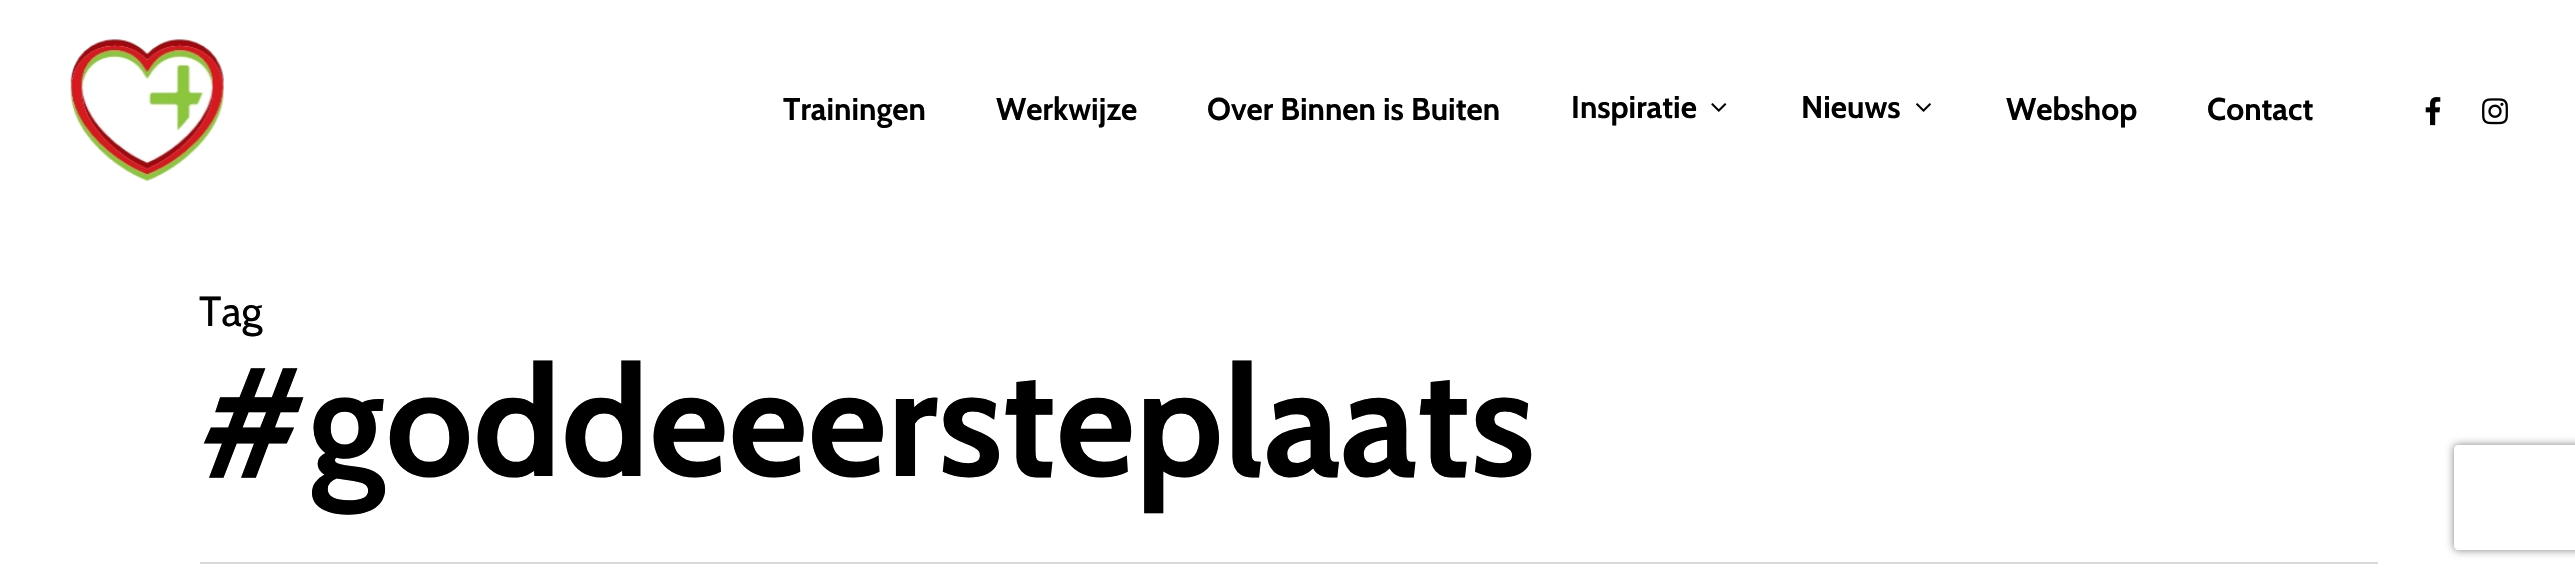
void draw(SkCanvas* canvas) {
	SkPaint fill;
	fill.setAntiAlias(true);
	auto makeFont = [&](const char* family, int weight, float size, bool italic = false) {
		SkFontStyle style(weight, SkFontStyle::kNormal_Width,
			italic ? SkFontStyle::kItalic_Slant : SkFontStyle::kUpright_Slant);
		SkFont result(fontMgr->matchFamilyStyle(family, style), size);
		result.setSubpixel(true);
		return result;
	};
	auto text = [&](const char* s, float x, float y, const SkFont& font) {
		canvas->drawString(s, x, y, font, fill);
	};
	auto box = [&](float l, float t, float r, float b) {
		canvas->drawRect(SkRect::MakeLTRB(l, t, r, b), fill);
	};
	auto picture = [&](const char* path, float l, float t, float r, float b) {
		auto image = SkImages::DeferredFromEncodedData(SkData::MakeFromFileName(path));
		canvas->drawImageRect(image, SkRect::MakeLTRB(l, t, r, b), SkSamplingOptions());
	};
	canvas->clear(0xFFFFFFFF);
	picture("image0.png", 70, 39, 224, 182);
	picture("image1.png", 1711, 103, 1727, 112);
	picture("image2.png", 1916, 103, 1931, 112);
	picture("image3.png", 2425, 97, 2441, 126);
	picture("image4.png", 2482, 98, 2508, 125);
	fill.setColor(0xFFD9D9D9);
	box(200, 562, 2378, 564);
	canvas->save();
	canvas->clipPath(SkPathBuilder(SkPathFillType::kEvenOdd).moveTo(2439, 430).lineTo(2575, 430).lineTo(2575, 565).lineTo(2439, 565).close().moveTo(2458, 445).lineTo(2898, 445).cubicTo(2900, 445, 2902, 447, 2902, 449).lineTo(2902, 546).cubicTo(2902, 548, 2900, 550, 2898, 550).lineTo(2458, 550).cubicTo(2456, 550, 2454, 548, 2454, 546).lineTo(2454, 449).cubicTo(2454, 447, 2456, 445, 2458, 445).close().detach(), true);
	fill.setColor(0xFF808080);
	fill.setMaskFilter(SkMaskFilter::MakeBlur(kNormal_SkBlurStyle, 4.5f));
	canvas->drawRoundRect(SkRect::MakeLTRB(2454, 445, 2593, 550), 4, 4, fill);
	fill.setMaskFilter(nullptr);
	canvas->restore();
	auto font1 = makeFont("Cabin", 700, 31.5f);
	fill.setColor(0xFF000000);
	text("Trainingen", 783, 120, font1);
	text("Werkwijze", 996, 120, font1);
	text("Over Binnen is Buiten", 1207, 120, font1);
	text("Inspiratie", 1571, 118, font1);
	text("Nieuws", 1801, 118, font1);
	text("Webshop", 2006, 120, font1);
	text("Contact", 2207, 120, font1);
	auto font2 = makeFont("Cabin", 400, 42);
	text("Tag", 199, 326, font2);
	auto font3 = makeFont("Cabin", 700, 154);
	text("#goddeeersteplaats", 199, 476, font3);
}
